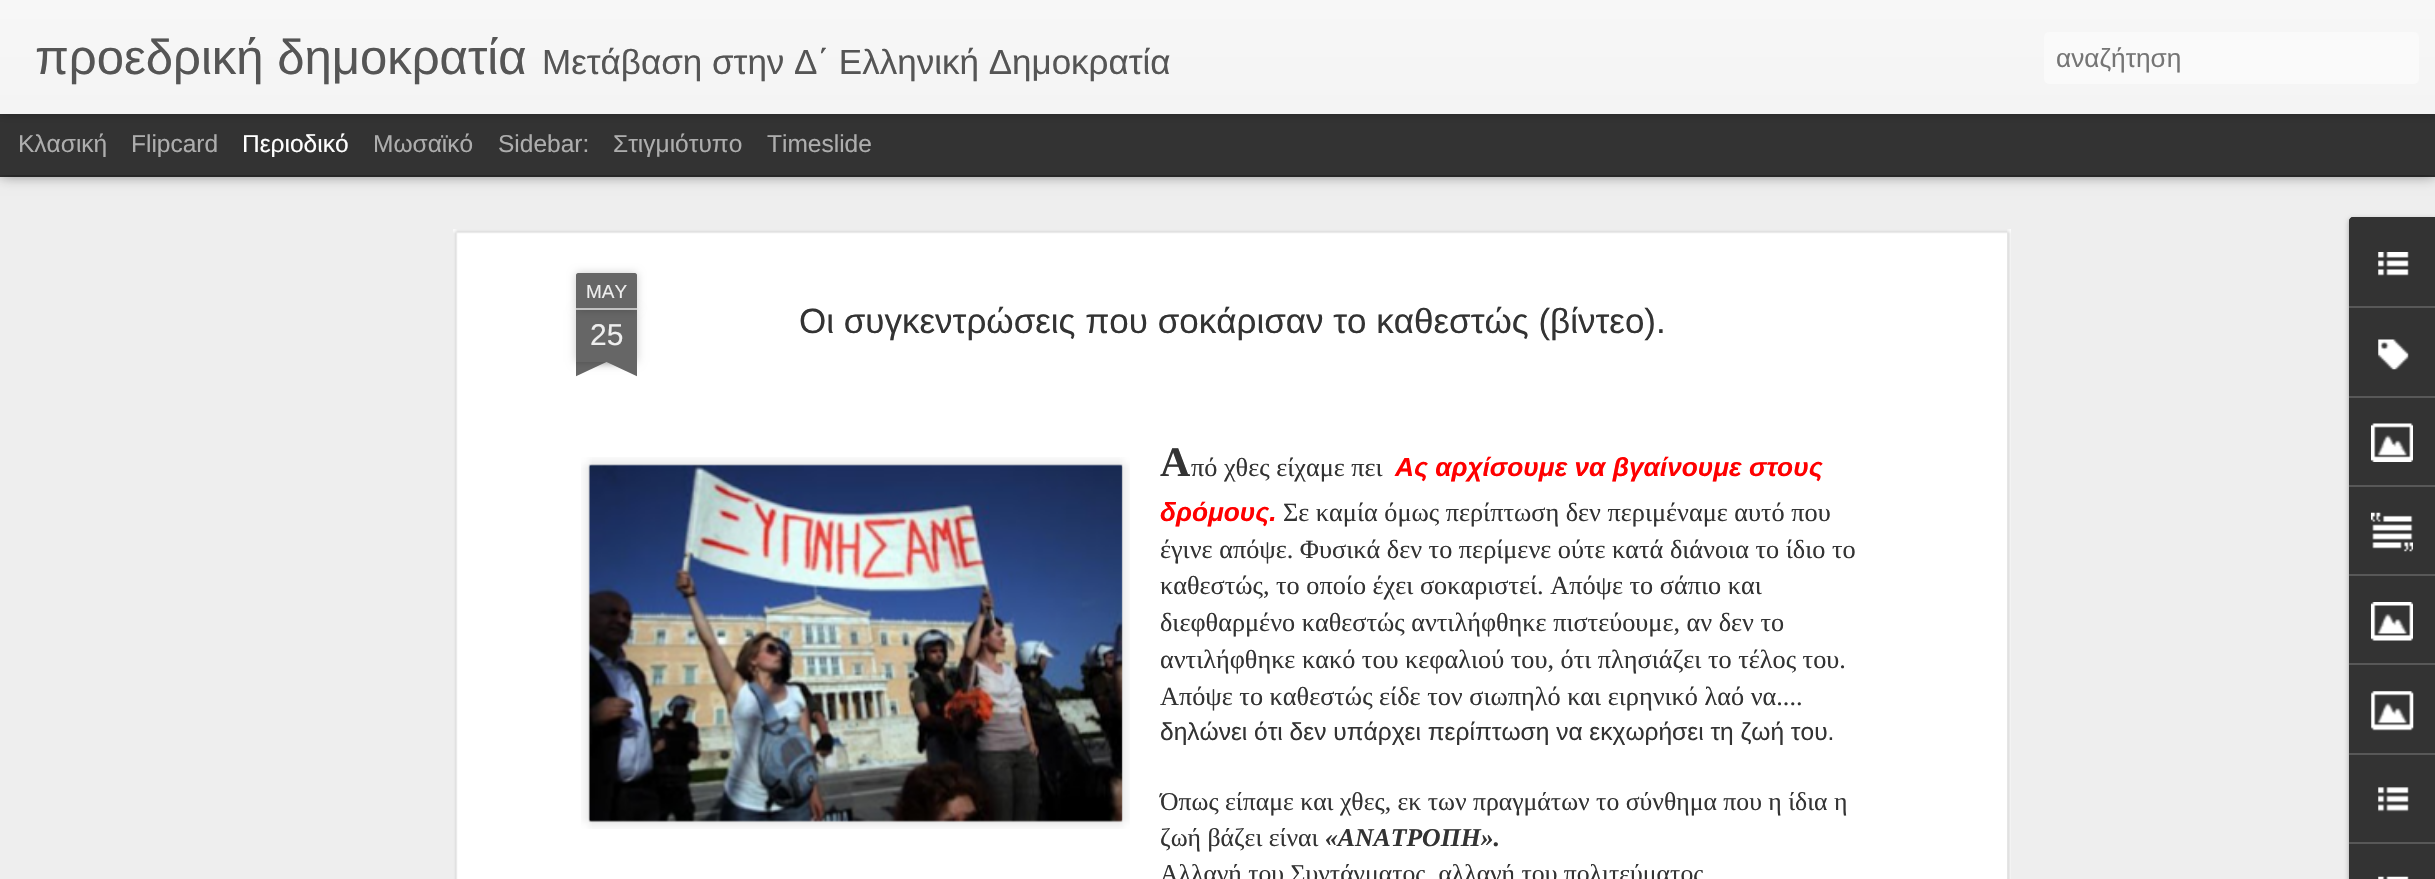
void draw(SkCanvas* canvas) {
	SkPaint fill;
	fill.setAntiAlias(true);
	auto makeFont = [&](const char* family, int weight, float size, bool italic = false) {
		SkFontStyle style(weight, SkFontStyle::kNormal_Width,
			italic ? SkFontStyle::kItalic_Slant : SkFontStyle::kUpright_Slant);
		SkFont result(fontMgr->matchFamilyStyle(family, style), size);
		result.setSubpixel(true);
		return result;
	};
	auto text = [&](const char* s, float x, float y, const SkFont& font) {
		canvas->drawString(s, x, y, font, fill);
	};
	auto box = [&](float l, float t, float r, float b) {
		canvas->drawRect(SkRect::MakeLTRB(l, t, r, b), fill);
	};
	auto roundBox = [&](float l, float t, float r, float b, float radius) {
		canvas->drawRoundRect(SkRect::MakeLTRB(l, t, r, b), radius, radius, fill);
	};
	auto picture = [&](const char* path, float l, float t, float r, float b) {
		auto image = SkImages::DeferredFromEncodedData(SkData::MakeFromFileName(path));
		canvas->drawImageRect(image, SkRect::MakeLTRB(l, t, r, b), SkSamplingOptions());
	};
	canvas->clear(0xFF333333);
	fill.setColor(0xFFEEEEEE);
	box(0, 177, 2435, 879);
	fill.setColor(0x80000000);
	fill.setMaskFilter(SkMaskFilter::MakeBlur(kNormal_SkBlurStyle, 7));
	canvas->drawRect(SkRect::MakeLTRB(0, 114, 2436, 175), fill);
	fill.setMaskFilter(nullptr);
	fill.setColor(0xFF333333);
	box(0, 114, 2435, 175);
	fill.setColor(0x4D000000);
	fill.setMaskFilter(SkMaskFilter::MakeBlur(kNormal_SkBlurStyle, 4.5f));
	canvas->drawRect(SkRect::MakeLTRB(0, 0, 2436, 114), fill);
	fill.setMaskFilter(nullptr);
	{
		const SkColor colors[] = {0xFFF7F7F7, 0xFFF4F4F4};
		const float stops[] = {0, 1};
		const SkPoint ends[] = {{0, 0}, {0, 114}};
		fill.setShader(SkGradientShader::MakeLinear(ends, colors, stops, 2, SkTileMode::kClamp));
		fill.setAlpha(255);
	}
	box(0, 0, 2435, 114);
	fill.setShader(nullptr);
	fill.setColor(0xFFFAFAFA);
	roundBox(2044, 32, 2419, 84, 5);
	fill.setColor(0xFFFFFFFF);
	box(453, 229, 2011, 879);
	picture("image0.png", 453, 229, 2011, 879);
	fill.setColor(0x33000000);
	fill.setMaskFilter(SkMaskFilter::MakeBlur(kNormal_SkBlurStyle, 4.5f));
	canvas->drawRect(SkRect::MakeLTRB(576, 310, 637, 362), fill);
	fill.setMaskFilter(nullptr);
	fill.setColor(0xFF666666);
	box(576, 310, 637, 362);
	fill.setColor(0x33000000);
	fill.setMaskFilter(SkMaskFilter::MakeBlur(kNormal_SkBlurStyle, 4.5f));
	canvas->drawRoundRect(SkRect::MakeLTRB(576, 273, 637, 310), 2, 2, fill);
	fill.setMaskFilter(nullptr);
	fill.setColor(0xFF666666);
	canvas->drawPath(SkPathBuilder().moveTo(578, 273).lineTo(635, 273).cubicTo(636, 273, 637, 274, 637, 275).lineTo(637, 310).lineTo(576, 310).lineTo(576, 275).cubicTo(576, 274, 577, 273, 578, 273).close().detach(), fill);
	fill.setColor(0xFFC2C2C2);
	box(576, 308, 637, 310);
	canvas->save();
	canvas->clipRect(SkRect::MakeLTRB(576, 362, 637, 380));
	fill.setColor(0x33000000);
	fill.setMaskFilter(SkMaskFilter::MakeBlur(kNormal_SkBlurStyle, 4.5f));
	canvas->drawRect(SkRect::MakeLTRB(560, 345, 648, 362), fill);
	fill.setMaskFilter(nullptr);
	canvas->restore();
	canvas->save();
	canvas->clipRect(SkRect::MakeLTRB(576, 362, 637, 380));
	fill.setColor(0xFF666666);
	canvas->drawPath(SkPathBuilder().moveTo(560, 364).lineTo(640, 327).lineTo(647, 343).lineTo(568, 380).close().detach(), fill);
	canvas->restore();
	canvas->save();
	canvas->clipRect(SkRect::MakeLTRB(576, 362, 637, 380));
	fill.setColor(0x33000000);
	fill.setMaskFilter(SkMaskFilter::MakeBlur(kNormal_SkBlurStyle, 4.5f));
	canvas->drawRect(SkRect::MakeLTRB(565, 345, 653, 362), fill);
	fill.setMaskFilter(nullptr);
	canvas->restore();
	canvas->save();
	canvas->clipRect(SkRect::MakeLTRB(576, 362, 637, 380));
	fill.setColor(0xFF666666);
	canvas->drawPath(SkPathBuilder().moveTo(573, 327).lineTo(652, 364).lineTo(645, 380).lineTo(566, 343).close().detach(), fill);
	canvas->restore();
	picture("image1.png", 581, 457, 1130, 829);
	picture("image2.png", 588, 464, 1123, 823);
	fill.setColor(0x4D000000);
	fill.setMaskFilter(SkMaskFilter::MakeBlur(kNormal_SkBlurStyle, 2.5f));
	canvas->drawRoundRect(SkRect::MakeLTRB(2349, 219, 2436, 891), 4, 4, fill);
	fill.setMaskFilter(nullptr);
	fill.setColor(0xFF333333);
	canvas->drawPath(SkPathBuilder().moveTo(2353, 217).lineTo(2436, 217).lineTo(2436, 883).lineTo(2353, 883).cubicTo(2351, 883, 2349, 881, 2349, 879).lineTo(2349, 221).cubicTo(2349, 219, 2351, 217, 2353, 217).close().detach(), fill);
	canvas->drawPath(SkPathBuilder().moveTo(2353, 217).lineTo(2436, 217).lineTo(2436, 306).lineTo(2349, 306).lineTo(2349, 221).cubicTo(2349, 219, 2351, 217, 2353, 217).close().detach(), fill);
	picture("image3.png", 2378, 252, 2409, 276);
	fill.setColor(0xFF585858);
	box(2349, 306, 2435, 308);
	picture("image4.png", 2378, 339, 2409, 370);
	box(2349, 396, 2435, 398);
	picture("image5.png", 2371, 423, 2413, 462);
	box(2349, 485, 2435, 487);
	picture("image6.png", 2371, 512, 2413, 552);
	box(2349, 574, 2435, 576);
	picture("image7.png", 2371, 602, 2413, 641);
	box(2349, 663, 2435, 665);
	picture("image8.png", 2371, 691, 2414, 731);
	box(2349, 753, 2435, 755);
	picture("image9.png", 2378, 787, 2409, 812);
	box(2349, 842, 2435, 844);
	picture("image10.png", 2378, 876, 2409, 879);
	auto font1 = makeFont("Liberation Sans", 400, 49);
	fill.setColor(0xFF555555);
	text("προεδρική δημοκρατία", 35, 74, font1);
	auto font2 = makeFont("Liberation Sans", 400, 35);
	text("Μετάβαση στην Δ΄ Ελληνική Δημοκρατία", 542, 74, font2);
	auto font3 = makeFont("Liberation Sans", 400, 26.25f);
	fill.setColor(0xFF757575);
	text("αναζήτηση", 2056, 67, font3);
	auto font4 = makeFont("Liberation Sans", 400, 24.5f);
	fill.setColor(0xFFADADAD);
	text("Κλασική", 18, 152, font4);
	text("Flipcard", 131, 152, font4);
	fill.setColor(0xFFFFFFFF);
	text("Περιοδικό", 242, 152, font4);
	fill.setColor(0xFFADADAD);
	text("Μωσαϊκό", 373, 152, font4);
	text("Sidebar:", 498, 152, font4);
	text("Στιγμιότυπο", 613, 152, font4);
	text("Timeslide", 767, 152, font4);
	auto font5 = makeFont("Liberation Sans", 400, 19);
	fill.setColor(0xFFEEEEEE);
	text("MAY", 586, 298, font5);
	auto font6 = makeFont("Liberation Sans", 400, 30);
	text("25", 590, 345, font6);
	fill.setColor(0xFF333333);
	text("Οι συγκεντρώσεις που σοκάρισαν το καθεστώς (βίντεο).", 799, 333, font2);
	auto font7 = makeFont("Liberation Serif", 700, 42);
	text("Α", 1160, 476, font7);
	auto font8 = makeFont("Liberation Serif", 400, 26.25f);
	text("πό χθες είχαμε πει", 1191, 476, font8);
	auto font9 = makeFont("Liberation Sans", 700, 26.25f, true);
	fill.setColor(0xFFFF0000);
	text("Ας αρχίσουμε να βγαίνουμε στους", 1395, 476, font9);
	text("δρόμους.", 1160, 521, font9);
	fill.setColor(0xFF333333);
	text("Σε καμία όμως περίπτωση δεν περιμέναμε αυτό που", 1283, 521, font8);
	text("έγινε απόψε. Φυσικά δεν το περίμενε ούτε κατά διάνοια το ίδιο το", 1160, 558, font8);
	text("καθεστώς, το οποίο έχει σοκαριστεί. Απόψε το σάπιο και", 1160, 594, font8);
	text("διεφθαρμένο καθεστώς αντιλήφθηκε πιστεύουμε, αν δεν το", 1160, 631, font8);
	text("αντιλήφθηκε κακό του κεφαλιού του, ότι πλησιάζει το τέλος του.", 1160, 668, font8);
	text("Απόψε το καθεστώς είδε τον σιωπηλό και ειρηνικό λαό να....", 1160, 705, font8);
	text("δηλώνει ότι δεν υπάρχει περίπτωση να εκχωρήσει τη ζωή του.", 1160, 740, font4);
	auto font10 = makeFont("Liberation Serif", 400, 25.7f);
	text("Όπως είπαμε και χθες, εκ των πραγμάτων το σύνθημα που η ίδια η", 1160, 810, font10);
	text("ζωή βάζει είναι", 1160, 846, font10);
	auto font11 = makeFont("Liberation Serif", 700, 25.7f, true);
	text("«ΑΝΑΤΡΟΠΗ».", 1325, 846, font11);
	text("Αλλαγή του Συντάγματος, αλλαγή του πολιτεύματος", 1160, 882, font10);
}
